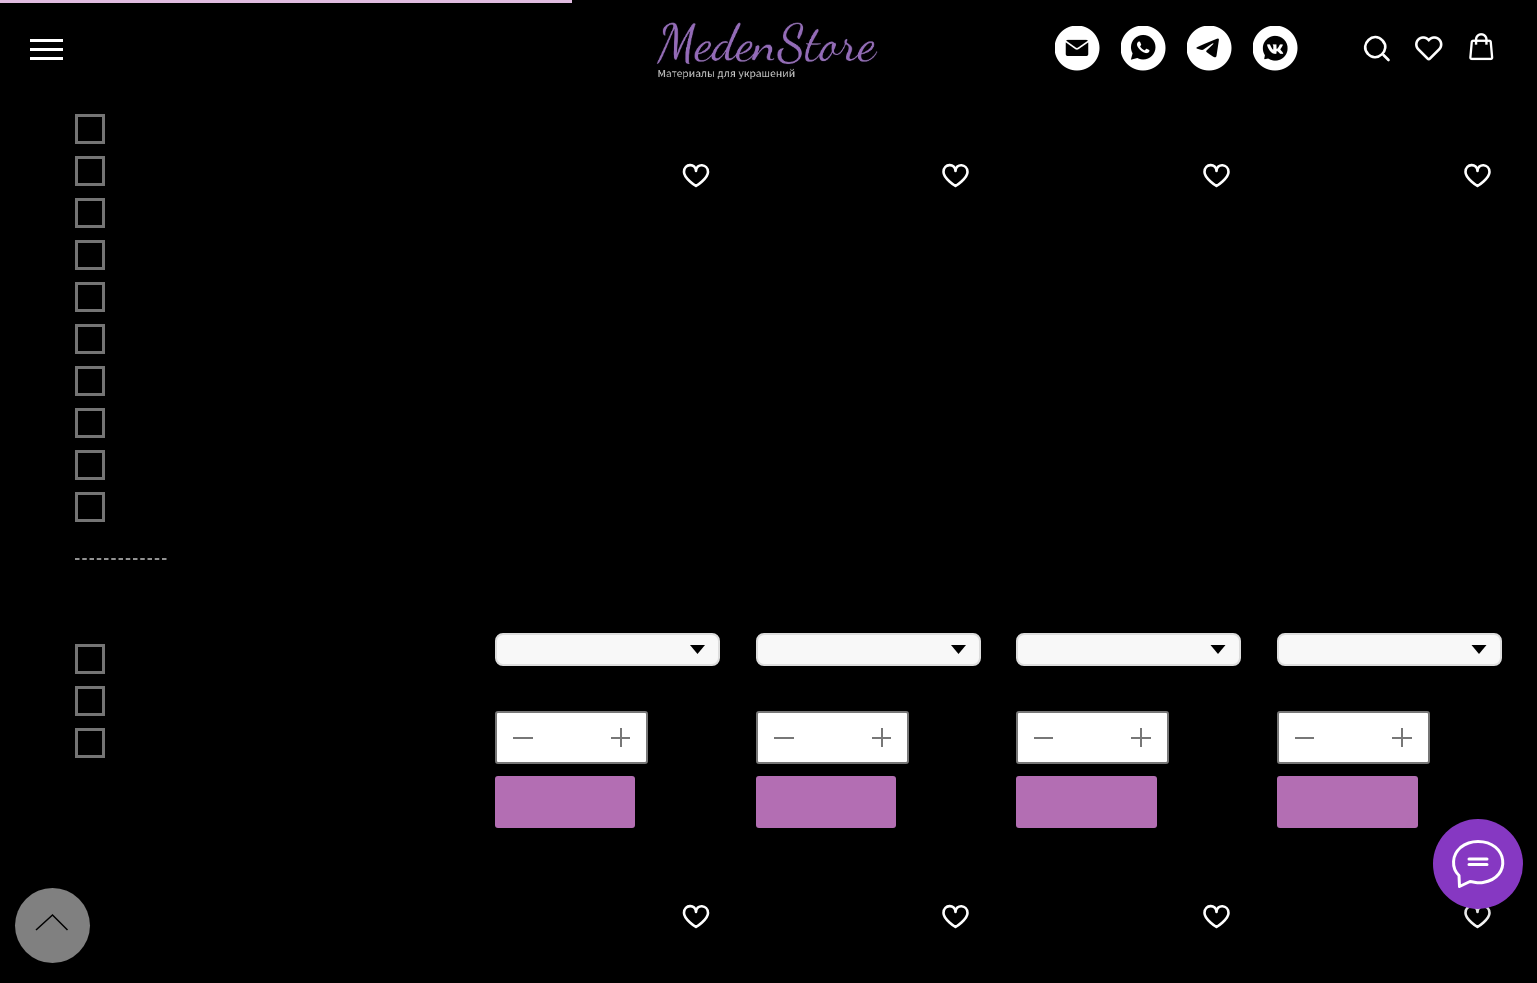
void draw(SkCanvas* canvas) {
	SkPaint fill;
	fill.setAntiAlias(true);
	auto box = [&](float l, float t, float r, float b) {
		canvas->drawRect(SkRect::MakeLTRB(l, t, r, b), fill);
	};
	auto roundBox = [&](float l, float t, float r, float b, float radius) {
		canvas->drawRoundRect(SkRect::MakeLTRB(l, t, r, b), radius, radius, fill);
	};
	auto picture = [&](const char* path, float l, float t, float r, float b) {
		auto image = SkImages::DeferredFromEncodedData(SkData::MakeFromFileName(path));
		canvas->drawImageRect(image, SkRect::MakeLTRB(l, t, r, b), SkSamplingOptions());
	};
	canvas->clear(0xFF000000);
	fill.setColor(0xFFE0BCE0);
	box(0, 0, 572, 3);
	fill.setColor(0xFFFFFFFF);
	box(30, 39, 63, 42);
	box(30, 48, 63, 51);
	box(30, 57, 63, 60);
	picture("image0.png", 656, 22, 879, 80);
	picture("image1.png", 1055, 26, 1100, 71);
	picture("image2.png", 1121, 26, 1166, 71);
	picture("image3.png", 1187, 26, 1232, 71);
	picture("image4.png", 1253, 26, 1298, 71);
	fill.setStyle(SkPaint::kStroke_Style);
	fill.setStrokeWidth(2.6f);
	canvas->drawPath(SkPathBuilder().moveTo(1382.5f, 40.5f).cubicTo(1391.5f, 50, 1376.5f, 63.5f, 1368, 54).cubicTo(1359, 44.5f, 1373.5f, 30.5f, 1382.5f, 40.5f).close().detach(), fill);
	fill.setStrokeCap(SkPaint::kRound_Cap);
	canvas->drawPath(SkPathBuilder().moveTo(1383.5f, 55).lineTo(1388.5f, 60).detach(), fill);
	picture("image5.png", 1415, 36, 1443, 61);
	picture("image6.png", 1469, 33, 1494, 61);
	fill.setStrokeWidth(3);
	fill.setStrokeCap(SkPaint::kButt_Cap);
	fill.setColor(0xFF747474);
	canvas->drawRect(SkRect::MakeLTRB(76.5f, 115.5f, 103.5f, 142.5f), fill);
	canvas->drawRect(SkRect::MakeLTRB(76.5f, 157.5f, 103.5f, 184.5f), fill);
	canvas->drawRect(SkRect::MakeLTRB(76.5f, 199.5f, 103.5f, 226.5f), fill);
	canvas->drawRect(SkRect::MakeLTRB(76.5f, 241.5f, 103.5f, 268.5f), fill);
	canvas->drawRect(SkRect::MakeLTRB(76.5f, 283.5f, 103.5f, 310.5f), fill);
	canvas->drawRect(SkRect::MakeLTRB(76.5f, 325.5f, 103.5f, 352.5f), fill);
	canvas->drawRect(SkRect::MakeLTRB(76.5f, 367.5f, 103.5f, 394.5f), fill);
	canvas->drawRect(SkRect::MakeLTRB(76.5f, 409.5f, 103.5f, 436.5f), fill);
	canvas->drawRect(SkRect::MakeLTRB(76.5f, 451.5f, 103.5f, 478.5f), fill);
	canvas->drawRect(SkRect::MakeLTRB(76.5f, 493.5f, 103.5f, 520.5f), fill);
	fill.setStrokeWidth(1.5f);
	fill.setColor(0xFFC2C2C2);
	fill.setPathEffect(SkDashPathEffect::Make({{4.5f, 2.75f}}, 0));
	canvas->drawPath(SkPathBuilder().moveTo(75, 559).lineTo(166.5f, 559).detach(), fill);
	fill.setPathEffect(nullptr);
	fill.setStrokeWidth(3);
	fill.setColor(0xFF747474);
	canvas->drawRect(SkRect::MakeLTRB(76.5f, 645.5f, 103.5f, 672.5f), fill);
	canvas->drawRect(SkRect::MakeLTRB(76.5f, 687.5f, 103.5f, 714.5f), fill);
	canvas->drawRect(SkRect::MakeLTRB(76.5f, 729.5f, 103.5f, 756.5f), fill);
	fill.setStrokeWidth(2.6f);
	fill.setStrokeJoin(SkPaint::kRound_Join);
	fill.setColor(0xFFFFFFFF);
	canvas->drawPath(SkPathBuilder().moveTo(708, 172).cubicTo(708, 178.5f, 696, 186, 696, 186).cubicTo(696, 186, 684, 178.5f, 684, 172).cubicTo(684, 163, 696, 163, 696, 171).cubicTo(696, 163, 708, 163.5f, 708, 172).close().detach(), fill);
	fill.setStyle(SkPaint::kFill_Style);
	fill.setColor(0xFFF8F8F8);
	canvas->drawRoundRect(SkRect::MakeLTRB(496, 634, 719, 665), 7, 7, fill);
	fill.setStyle(SkPaint::kStroke_Style);
	fill.setStrokeWidth(2);
	fill.setStrokeJoin(SkPaint::kMiter_Join);
	fill.setColor(0xFFDDDDDD);
	canvas->drawRoundRect(SkRect::MakeLTRB(496, 634, 719, 665), 7, 7, fill);
	fill.setStyle(SkPaint::kFill_Style);
	fill.setColor(0xFF000000);
	canvas->drawPath(SkPathBuilder().moveTo(690, 645).lineTo(705, 645).lineTo(697.5f, 654).close().detach(), fill);
	fill.setColor(0xFFFFFFFF);
	canvas->drawRoundRect(SkRect::MakeLTRB(496, 712, 647, 763), 2, 2, fill);
	fill.setStyle(SkPaint::kStroke_Style);
	fill.setColor(0xFF777777);
	canvas->drawRoundRect(SkRect::MakeLTRB(496, 712, 647, 763), 2, 2, fill);
	fill.setStyle(SkPaint::kFill_Style);
	box(513, 737, 533, 739);
	box(620, 728, 622, 747);
	box(611, 737, 630, 739);
	fill.setColor(0xFFB36EB3);
	roundBox(495, 776, 635, 828, 3);
	fill.setStyle(SkPaint::kStroke_Style);
	fill.setStrokeWidth(2.6f);
	fill.setStrokeJoin(SkPaint::kRound_Join);
	fill.setColor(0xFFFFFFFF);
	canvas->drawPath(SkPathBuilder().moveTo(967.5f, 172).cubicTo(967.5f, 178.5f, 955.5f, 186, 955.5f, 186).cubicTo(955.5f, 186, 943.5f, 178.5f, 943.5f, 172).cubicTo(943.5f, 163, 955.5f, 163, 955.5f, 171).cubicTo(955.5f, 163, 967.5f, 163.5f, 967.5f, 172).close().detach(), fill);
	fill.setStyle(SkPaint::kFill_Style);
	fill.setColor(0xFFF8F8F8);
	canvas->drawRoundRect(SkRect::MakeLTRB(757, 634, 980, 665), 7, 7, fill);
	fill.setStyle(SkPaint::kStroke_Style);
	fill.setStrokeWidth(2);
	fill.setStrokeJoin(SkPaint::kMiter_Join);
	fill.setColor(0xFFDDDDDD);
	canvas->drawRoundRect(SkRect::MakeLTRB(757, 634, 980, 665), 7, 7, fill);
	fill.setStyle(SkPaint::kFill_Style);
	fill.setColor(0xFF000000);
	canvas->drawPath(SkPathBuilder().moveTo(951, 645).lineTo(966, 645).lineTo(958.5f, 654).close().detach(), fill);
	fill.setColor(0xFFFFFFFF);
	canvas->drawRoundRect(SkRect::MakeLTRB(757, 712, 908, 763), 2, 2, fill);
	fill.setStyle(SkPaint::kStroke_Style);
	fill.setColor(0xFF777777);
	canvas->drawRoundRect(SkRect::MakeLTRB(757, 712, 908, 763), 2, 2, fill);
	fill.setStyle(SkPaint::kFill_Style);
	box(774, 737, 794, 739);
	box(881, 728, 883, 747);
	box(872, 737, 891, 739);
	fill.setColor(0xFFB36EB3);
	roundBox(756, 776, 896, 828, 3);
	fill.setStyle(SkPaint::kStroke_Style);
	fill.setStrokeWidth(2.6f);
	fill.setStrokeJoin(SkPaint::kRound_Join);
	fill.setColor(0xFFFFFFFF);
	canvas->drawPath(SkPathBuilder().moveTo(1228.5f, 172).cubicTo(1228.5f, 178.5f, 1216.5f, 186, 1216.5f, 186).cubicTo(1216.5f, 186, 1204.5f, 178.5f, 1204.5f, 172).cubicTo(1204.5f, 163, 1216.5f, 163, 1216.5f, 171).cubicTo(1216.5f, 163, 1228.5f, 163.5f, 1228.5f, 172).close().detach(), fill);
	fill.setStyle(SkPaint::kFill_Style);
	fill.setColor(0xFFF8F8F8);
	canvas->drawRoundRect(SkRect::MakeLTRB(1017, 634, 1240, 665), 7, 7, fill);
	fill.setStyle(SkPaint::kStroke_Style);
	fill.setStrokeWidth(2);
	fill.setStrokeJoin(SkPaint::kMiter_Join);
	fill.setColor(0xFFDDDDDD);
	canvas->drawRoundRect(SkRect::MakeLTRB(1017, 634, 1240, 665), 7, 7, fill);
	fill.setStyle(SkPaint::kFill_Style);
	fill.setColor(0xFF000000);
	canvas->drawPath(SkPathBuilder().moveTo(1210.5f, 645).lineTo(1225.5f, 645).lineTo(1218, 654).close().detach(), fill);
	fill.setColor(0xFFFFFFFF);
	canvas->drawRoundRect(SkRect::MakeLTRB(1017, 712, 1168, 763), 2, 2, fill);
	fill.setStyle(SkPaint::kStroke_Style);
	fill.setColor(0xFF777777);
	canvas->drawRoundRect(SkRect::MakeLTRB(1017, 712, 1168, 763), 2, 2, fill);
	fill.setStyle(SkPaint::kFill_Style);
	box(1034, 737, 1053, 739);
	box(1140, 728, 1142, 747);
	box(1131, 737, 1151, 739);
	fill.setColor(0xFFB36EB3);
	roundBox(1016, 776, 1157, 828, 3);
	fill.setStyle(SkPaint::kStroke_Style);
	fill.setStrokeWidth(2.6f);
	fill.setStrokeJoin(SkPaint::kRound_Join);
	fill.setColor(0xFFFFFFFF);
	canvas->drawPath(SkPathBuilder().moveTo(1489.5f, 172).cubicTo(1489.5f, 178.5f, 1477.5f, 186, 1477.5f, 186).cubicTo(1477.5f, 186, 1465.5f, 178.5f, 1465.5f, 172).cubicTo(1465.5f, 163, 1477.5f, 163, 1477.5f, 171).cubicTo(1477.5f, 163, 1489.5f, 163.5f, 1489.5f, 172).close().detach(), fill);
	fill.setStyle(SkPaint::kFill_Style);
	fill.setColor(0xFFF8F8F8);
	canvas->drawRoundRect(SkRect::MakeLTRB(1278, 634, 1501, 665), 7, 7, fill);
	fill.setStyle(SkPaint::kStroke_Style);
	fill.setStrokeWidth(2);
	fill.setStrokeJoin(SkPaint::kMiter_Join);
	fill.setColor(0xFFDDDDDD);
	canvas->drawRoundRect(SkRect::MakeLTRB(1278, 634, 1501, 665), 7, 7, fill);
	fill.setStyle(SkPaint::kFill_Style);
	fill.setColor(0xFF000000);
	canvas->drawPath(SkPathBuilder().moveTo(1471.5f, 645).lineTo(1486.5f, 645).lineTo(1479, 654).close().detach(), fill);
	fill.setColor(0xFFFFFFFF);
	canvas->drawRoundRect(SkRect::MakeLTRB(1278, 712, 1429, 763), 2, 2, fill);
	fill.setStyle(SkPaint::kStroke_Style);
	fill.setColor(0xFF777777);
	canvas->drawRoundRect(SkRect::MakeLTRB(1278, 712, 1429, 763), 2, 2, fill);
	fill.setStyle(SkPaint::kFill_Style);
	box(1295, 737, 1314, 739);
	box(1401, 728, 1403, 747);
	box(1392, 737, 1412, 739);
	fill.setColor(0xFFB36EB3);
	roundBox(1277, 776, 1418, 828, 3);
	fill.setStyle(SkPaint::kStroke_Style);
	fill.setStrokeWidth(2.6f);
	fill.setStrokeJoin(SkPaint::kRound_Join);
	fill.setColor(0xFFFFFFFF);
	canvas->drawPath(SkPathBuilder().moveTo(708, 913).cubicTo(708, 919.5f, 696, 927, 696, 927).cubicTo(696, 927, 684, 919.5f, 684, 913).cubicTo(684, 904, 696, 904, 696, 912).cubicTo(696, 904, 708, 904.5f, 708, 913).close().detach(), fill);
	canvas->drawPath(SkPathBuilder().moveTo(967.5f, 913).cubicTo(967.5f, 919.5f, 955.5f, 927, 955.5f, 927).cubicTo(955.5f, 927, 943.5f, 919.5f, 943.5f, 913).cubicTo(943.5f, 904, 955.5f, 904, 955.5f, 912).cubicTo(955.5f, 904, 967.5f, 904.5f, 967.5f, 913).close().detach(), fill);
	canvas->drawPath(SkPathBuilder().moveTo(1228.5f, 913).cubicTo(1228.5f, 919.5f, 1216.5f, 927, 1216.5f, 927).cubicTo(1216.5f, 927, 1204.5f, 919.5f, 1204.5f, 913).cubicTo(1204.5f, 904, 1216.5f, 904, 1216.5f, 912).cubicTo(1216.5f, 904, 1228.5f, 904.5f, 1228.5f, 913).close().detach(), fill);
	canvas->drawPath(SkPathBuilder().moveTo(1489.5f, 913).cubicTo(1489.5f, 919.5f, 1477.5f, 927, 1477.5f, 927).cubicTo(1477.5f, 927, 1465.5f, 919.5f, 1465.5f, 913).cubicTo(1465.5f, 904, 1477.5f, 904, 1477.5f, 912).cubicTo(1477.5f, 904, 1489.5f, 904.5f, 1489.5f, 913).close().detach(), fill);
	fill.setStyle(SkPaint::kFill_Style);
	fill.setColor(0xFF808080);
	canvas->drawCircle(52.5f, 925.5f, 37.5f, fill);
	fill.setStyle(SkPaint::kStroke_Style);
	fill.setStrokeWidth(1.5f);
	fill.setStrokeJoin(SkPaint::kMiter_Join);
	fill.setColor(0xFF000000);
	canvas->drawPath(SkPathBuilder().moveTo(36, 930).lineTo(52.5f, 915).lineTo(67.5f, 930).detach(), fill);
	fill.setStyle(SkPaint::kFill_Style);
	fill.setColor(0x4D000000);
	fill.setMaskFilter(SkMaskFilter::MakeBlur(kNormal_SkBlurStyle, 15));
	canvas->drawRoundRect(SkRect::MakeLTRB(1433, 819, 1523, 909), 45, 45, fill);
	fill.setMaskFilter(nullptr);
	fill.setColor(0xFF8638C2);
	canvas->drawCircle(1478, 864, 45, fill);
	fill.setStyle(SkPaint::kStroke_Style);
	fill.setStrokeWidth(3);
	fill.setStrokeCap(SkPaint::kRound_Cap);
	fill.setStrokeJoin(SkPaint::kRound_Join);
	fill.setColor(0xFFFFFFFF);
	canvas->drawPath(SkPathBuilder().moveTo(1469, 859).lineTo(1487, 859).moveTo(1469, 864.5f).lineTo(1487, 864.5f).moveTo(1459, 875.5f).cubicTo(1451, 867.5f, 1452, 855, 1460.5f, 847.5f).cubicTo(1465.5f, 843.5f, 1472, 841.5f, 1478, 841.5f).cubicTo(1507.5f, 841.5f, 1512.5f, 877.5f, 1483, 882.5f).cubicTo(1478, 883.5f, 1475, 882, 1470, 881.5f).lineTo(1459.5f, 886.5f).close().detach(), fill);
}
